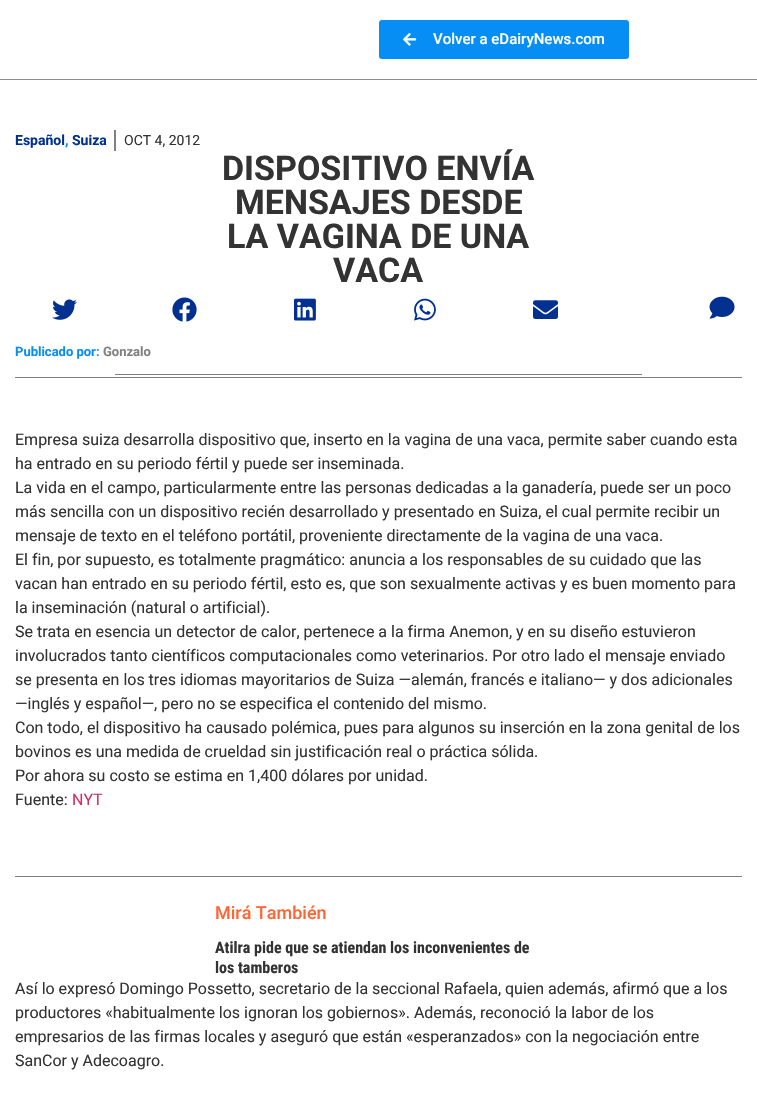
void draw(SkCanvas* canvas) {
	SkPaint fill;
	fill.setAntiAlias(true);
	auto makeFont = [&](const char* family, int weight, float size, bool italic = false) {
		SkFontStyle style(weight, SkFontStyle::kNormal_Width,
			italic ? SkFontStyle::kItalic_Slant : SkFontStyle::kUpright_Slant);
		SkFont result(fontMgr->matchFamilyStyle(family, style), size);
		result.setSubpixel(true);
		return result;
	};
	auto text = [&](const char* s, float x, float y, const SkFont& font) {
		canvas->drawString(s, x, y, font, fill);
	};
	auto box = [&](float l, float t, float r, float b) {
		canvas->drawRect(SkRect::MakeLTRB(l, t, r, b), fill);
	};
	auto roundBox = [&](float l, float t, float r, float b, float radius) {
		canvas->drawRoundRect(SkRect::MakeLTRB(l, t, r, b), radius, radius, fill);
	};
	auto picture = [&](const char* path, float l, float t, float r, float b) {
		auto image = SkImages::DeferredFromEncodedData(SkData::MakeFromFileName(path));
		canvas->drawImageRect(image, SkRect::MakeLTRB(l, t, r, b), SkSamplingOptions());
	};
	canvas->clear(0xFFFFFFFF);
	fill.setColor(0xFF8B8B8B);
	box(0, 79, 757, 80);
	fill.setColor(0xFF078EF4);
	roundBox(379, 20, 629, 59, 3);
	picture("image0.png", 403, 33, 417, 46);
	fill.setColor(0xFF808080);
	box(114, 130, 116, 151);
	picture("image1.png", 52, 299, 77, 320);
	picture("image2.png", 172, 297, 197, 322);
	picture("image3.png", 294, 298, 316, 321);
	picture("image4.png", 414, 298, 436, 321);
	picture("image5.png", 533, 300, 558, 319);
	picture("image6.png", 709, 296, 735, 319);
	box(115, 374, 642, 375);
	box(15, 377, 742, 378);
	box(15, 876, 742, 877);
	auto font1 = makeFont("Roboto", 500, 15);
	fill.setColor(0xFFFFFFFF);
	text("Volver a eDairyNews.com", 433, 44, font1);
	auto font2 = makeFont("Roboto", 700, 14);
	fill.setColor(0xFF013091);
	text("Español", 15, 145, font2);
	fill.setColor(0xFF078EF4);
	text(",", 65, 145, font2);
	fill.setColor(0xFF013091);
	text("Suiza", 72, 145, font2);
	auto font3 = makeFont("Roboto", 400, 14);
	fill.setColor(0xFF333333);
	text("OCT 4, 2012", 124, 145, font3);
	auto font4 = makeFont("Roboto", 700, 34);
	text("DISPOSITIVO ENVÍA", 222, 180, font4);
	text("MENSAJES DESDE", 235, 214, font4);
	text("LA VAGINA DE UNA", 227, 248, font4);
	text("VACA", 333, 282, font4);
	auto font5 = makeFont("Roboto", 700, 13);
	fill.setColor(0xFF078EF4);
	text("Publicado por:", 15, 356, font5);
	fill.setColor(0xFF808080);
	text("Gonzalo", 103, 356, font5);
	auto font6 = makeFont("Roboto", 400, 16);
	fill.setColor(0xFF333333);
	text("Empresa suiza desarrolla dispositivo que, inserto en la vagina de una vaca, permite saber cuando esta", 15, 445, font6);
	text("ha entrado en su periodo fértil y puede ser inseminada.", 15, 469, font6);
	text("La vida en el campo, particularmente entre las personas dedicadas a la ganadería, puede ser un poco", 15, 493, font6);
	text("más sencilla con un dispositivo recién desarrollado y presentado en Suiza, el cual permite recibir un", 15, 517, font6);
	text("mensaje de texto en el teléfono portátil, proveniente directamente de la vagina de una vaca.", 15, 541, font6);
	text("El fin, por supuesto, es totalmente pragmático: anuncia a los responsables de su cuidado que las", 15, 565, font6);
	text("vacan han entrado en su periodo fértil, esto es, que son sexualmente activas y es buen momento para", 15, 589, font6);
	text("la inseminación (natural o artificial).", 15, 613, font6);
	text("Se trata en esencia un detector de calor, pertenece a la firma Anemon, y en su diseño estuvieron", 15, 637, font6);
	text("involucrados tanto científicos computacionales como veterinarios. Por otro lado el mensaje enviado", 15, 661, font6);
	text("se presenta en los tres idiomas mayoritarios de Suiza —alemán, francés e italiano— y dos adicionales", 15, 685, font6);
	text("—inglés y español—, pero no se especifica el contenido del mismo.", 15, 709, font6);
	text("Con todo, el dispositivo ha causado polémica, pues para algunos su inserción en la zona genital de los", 15, 733, font6);
	text("bovinos es una medida de crueldad sin justificación real o práctica sólida.", 15, 757, font6);
	text("Por ahora su costo se estima en 1,400 dólares por unidad.", 15, 781, font6);
	text("Fuente:", 15, 805, font6);
	fill.setColor(0xFFCC3366);
	text("NYT", 72, 805, font6);
	auto font7 = makeFont("Roboto", 500, 18);
	fill.setColor(0xFFFF6633);
	text("Mirá También", 215, 919, font7);
	auto font8 = makeFont("Roboto Condensed", 700, 16);
	fill.setColor(0xFF333333);
	text("Atilra pide que se atiendan los inconvenientes de", 215, 953, font8);
	text("los tamberos", 215, 973, font8);
	text("Así lo expresó Domingo Possetto, secretario de la seccional Rafaela, quien además, afirmó que a los", 15, 994, font6);
	text("productores «habitualmente los ignoran los gobiernos». Además, reconoció la labor de los", 15, 1018, font6);
	text("empresarios de las firmas locales y aseguró que están «esperanzados» con la negociación entre", 15, 1042, font6);
	text("SanCor y Adecoagro.", 15, 1066, font6);
}
